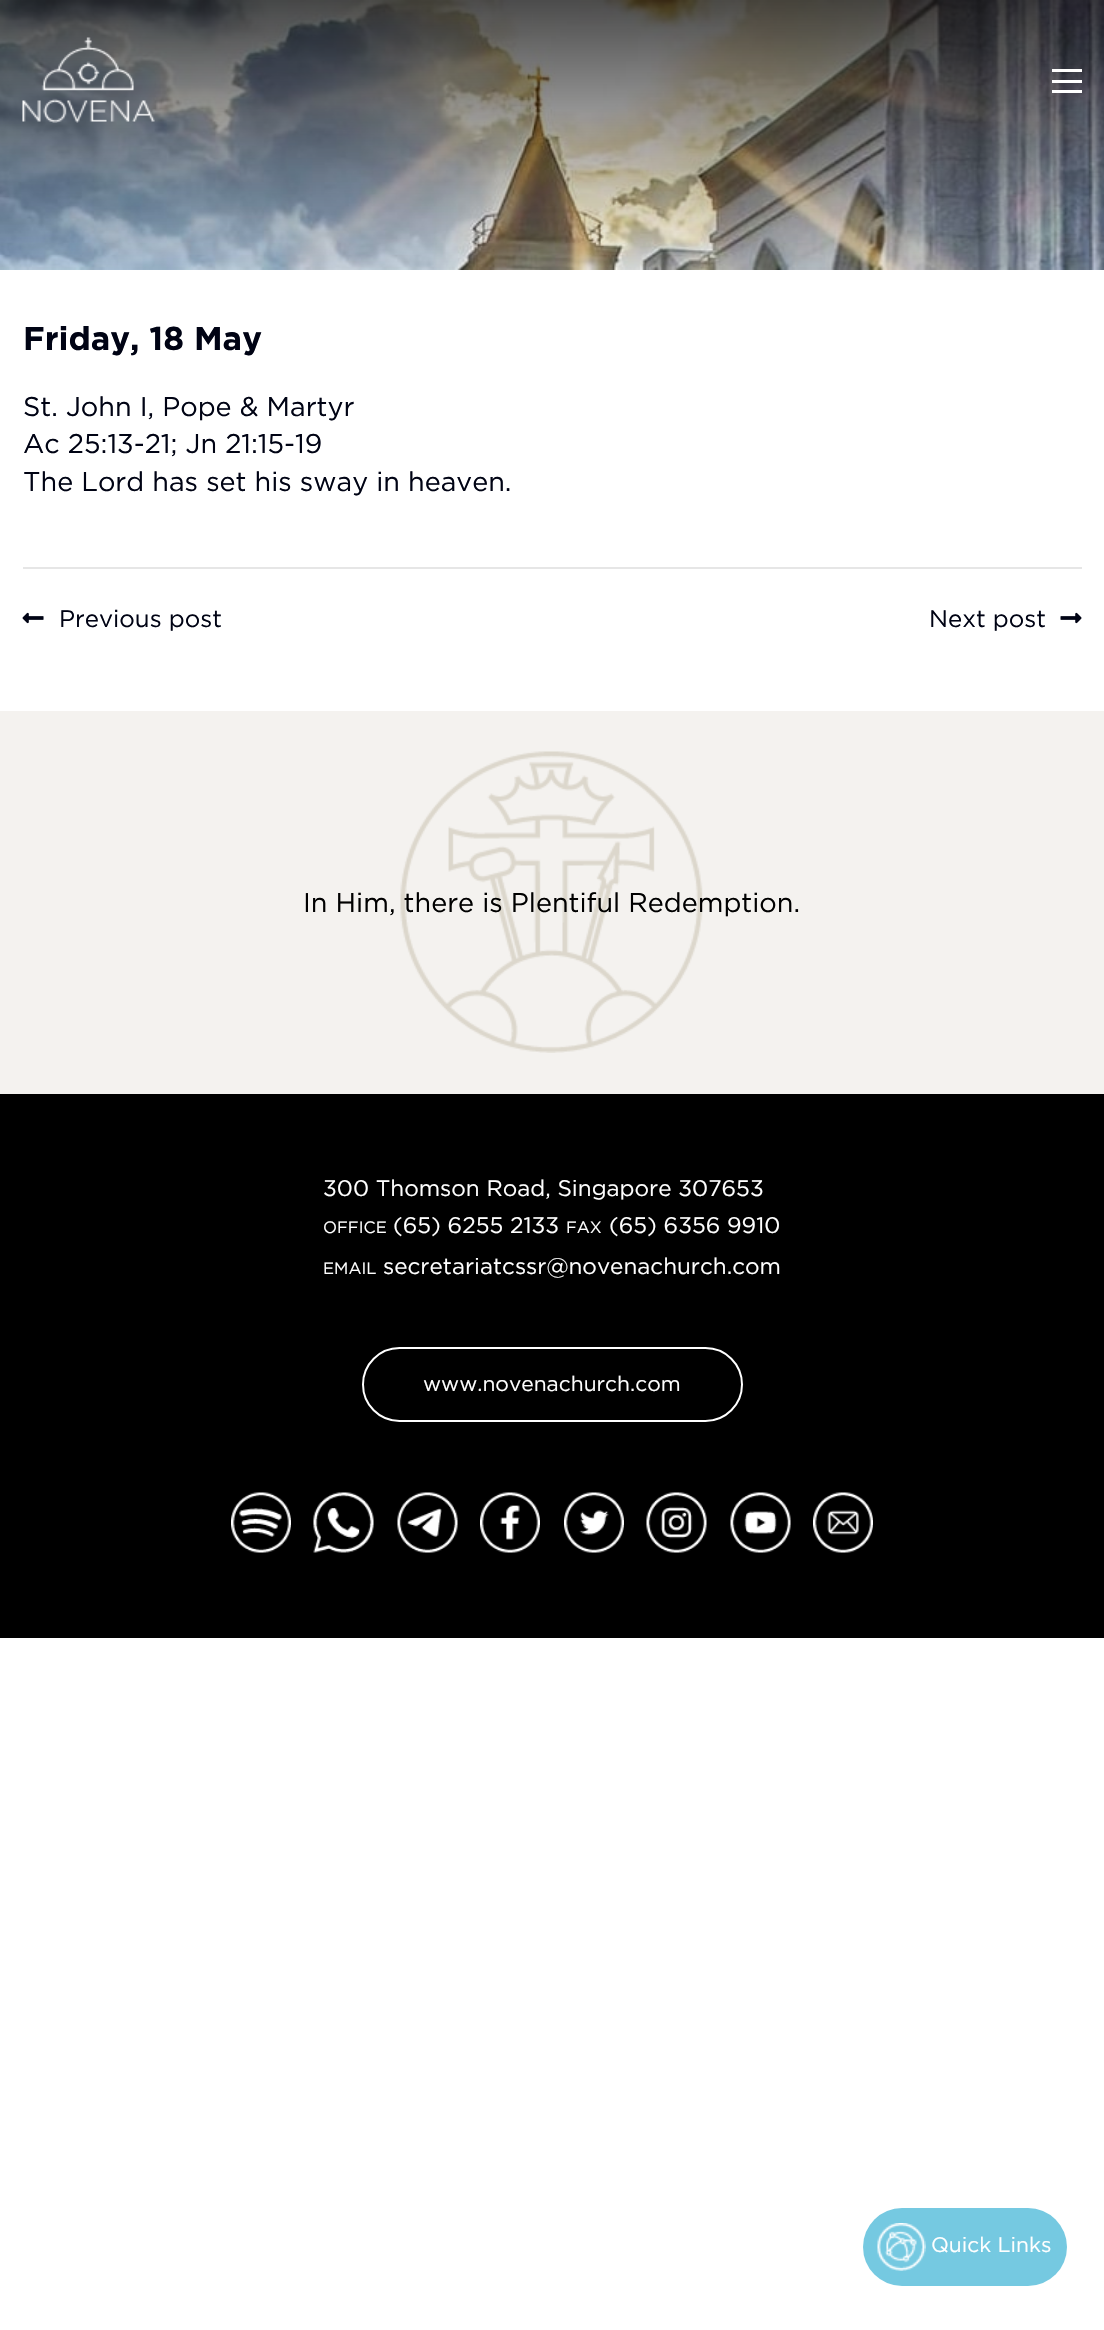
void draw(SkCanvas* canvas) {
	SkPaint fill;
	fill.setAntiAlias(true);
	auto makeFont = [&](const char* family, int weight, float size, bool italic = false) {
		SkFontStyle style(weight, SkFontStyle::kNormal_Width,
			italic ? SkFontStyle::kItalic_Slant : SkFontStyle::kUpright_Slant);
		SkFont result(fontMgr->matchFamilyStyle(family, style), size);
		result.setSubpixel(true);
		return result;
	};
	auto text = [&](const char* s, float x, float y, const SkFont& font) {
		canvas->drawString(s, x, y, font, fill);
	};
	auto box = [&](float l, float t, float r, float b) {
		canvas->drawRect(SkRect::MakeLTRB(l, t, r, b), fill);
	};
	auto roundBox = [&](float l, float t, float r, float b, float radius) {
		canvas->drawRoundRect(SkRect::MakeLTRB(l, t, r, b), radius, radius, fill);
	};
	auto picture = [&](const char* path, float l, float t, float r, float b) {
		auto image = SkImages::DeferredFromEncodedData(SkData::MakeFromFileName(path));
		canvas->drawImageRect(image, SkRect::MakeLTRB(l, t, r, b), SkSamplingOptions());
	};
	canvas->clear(0xFFFFFFFF);
	picture("image0.png", 0, 0, 1104, 270);
	picture("image1.png", 22, 37, 155, 123);
	fill.setColor(0xFFFFFFFF);
	box(1052, 80, 1082, 83);
	box(1052, 69, 1082, 72);
	box(1052, 90, 1082, 93);
	fill.setColor(0xFFE6E6E6);
	box(23, 567, 1082, 569);
	picture("image2.png", 22, 612, 44, 624);
	picture("image3.png", 1060, 612, 1082, 624);
	fill.setColor(0xFFF4F2EF);
	box(0, 711, 1104, 1094);
	picture("image4.png", 400, 751, 703, 1053);
	fill.setColor(0xFF000000);
	box(0, 1094, 1104, 1638);
	fill.setStyle(SkPaint::kStroke_Style);
	fill.setStrokeWidth(2);
	fill.setColor(0xFFFFFFFF);
	canvas->drawRoundRect(SkRect::MakeLTRB(363, 1348, 742, 1421), 36.5f, 36.5f, fill);
	picture("image5.png", 231, 1492, 291, 1553);
	picture("image6.png", 313, 1492, 374, 1553);
	picture("image7.png", 397, 1492, 458, 1553);
	picture("image8.png", 480, 1492, 540, 1553);
	picture("image9.png", 564, 1492, 624, 1553);
	picture("image10.png", 646, 1492, 707, 1553);
	picture("image11.png", 730, 1492, 791, 1553);
	picture("image12.png", 813, 1492, 873, 1553);
	fill.setStyle(SkPaint::kFill_Style);
	fill.setColor(0xFF75C9E1);
	roundBox(863, 2208, 1067, 2286, 39);
	picture("image13.png", 877, 2223, 926, 2271);
	auto font1 = makeFont("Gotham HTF", 700, 33);
	fill.setColor(0xFF000314);
	text("Friday, 18 May", 23, 350, font1);
	auto font2 = makeFont("Gotham HTF", 400, 27);
	text("St. John I, Pope & Martyr", 23, 416, font2);
	text("Ac 25:13-21; Jn 21:15-19", 23, 453, font2);
	text("The Lord has set his sway in heaven.", 23, 491, font2);
	auto font3 = makeFont("Gotham HTF", 400, 24);
	text("Previous post", 59, 627, font3);
	text("Next post", 929, 627, font3);
	fill.setColor(0xFF000000);
	text("In Him, there is Plentiful Redemption.", 303, 912, font2);
	auto font4 = makeFont("Gotham HTF", 400, 22.5f);
	fill.setColor(0xFFFFFFFF);
	text("300 Thomson Road, Singapore 307653", 323, 1196, font4);
	auto font5 = makeFont("Gotham HTF", 400, 16.5f);
	text("OFFICE", 323, 1233, font5);
	text("(65) 6255 2133", 393, 1233, font4);
	text("FAX", 566, 1233, font5);
	text("(65) 6356 9910", 609, 1233, font4);
	text("EMAIL", 323, 1274, font5);
	text("secretariatcssr@novenachurch.com", 383, 1274, font4);
	auto font6 = makeFont("Gotham HTF", 400, 21);
	text("www.novenachurch.com", 423, 1391, font6);
	text("Quick Links", 931, 2252, font6);
}
